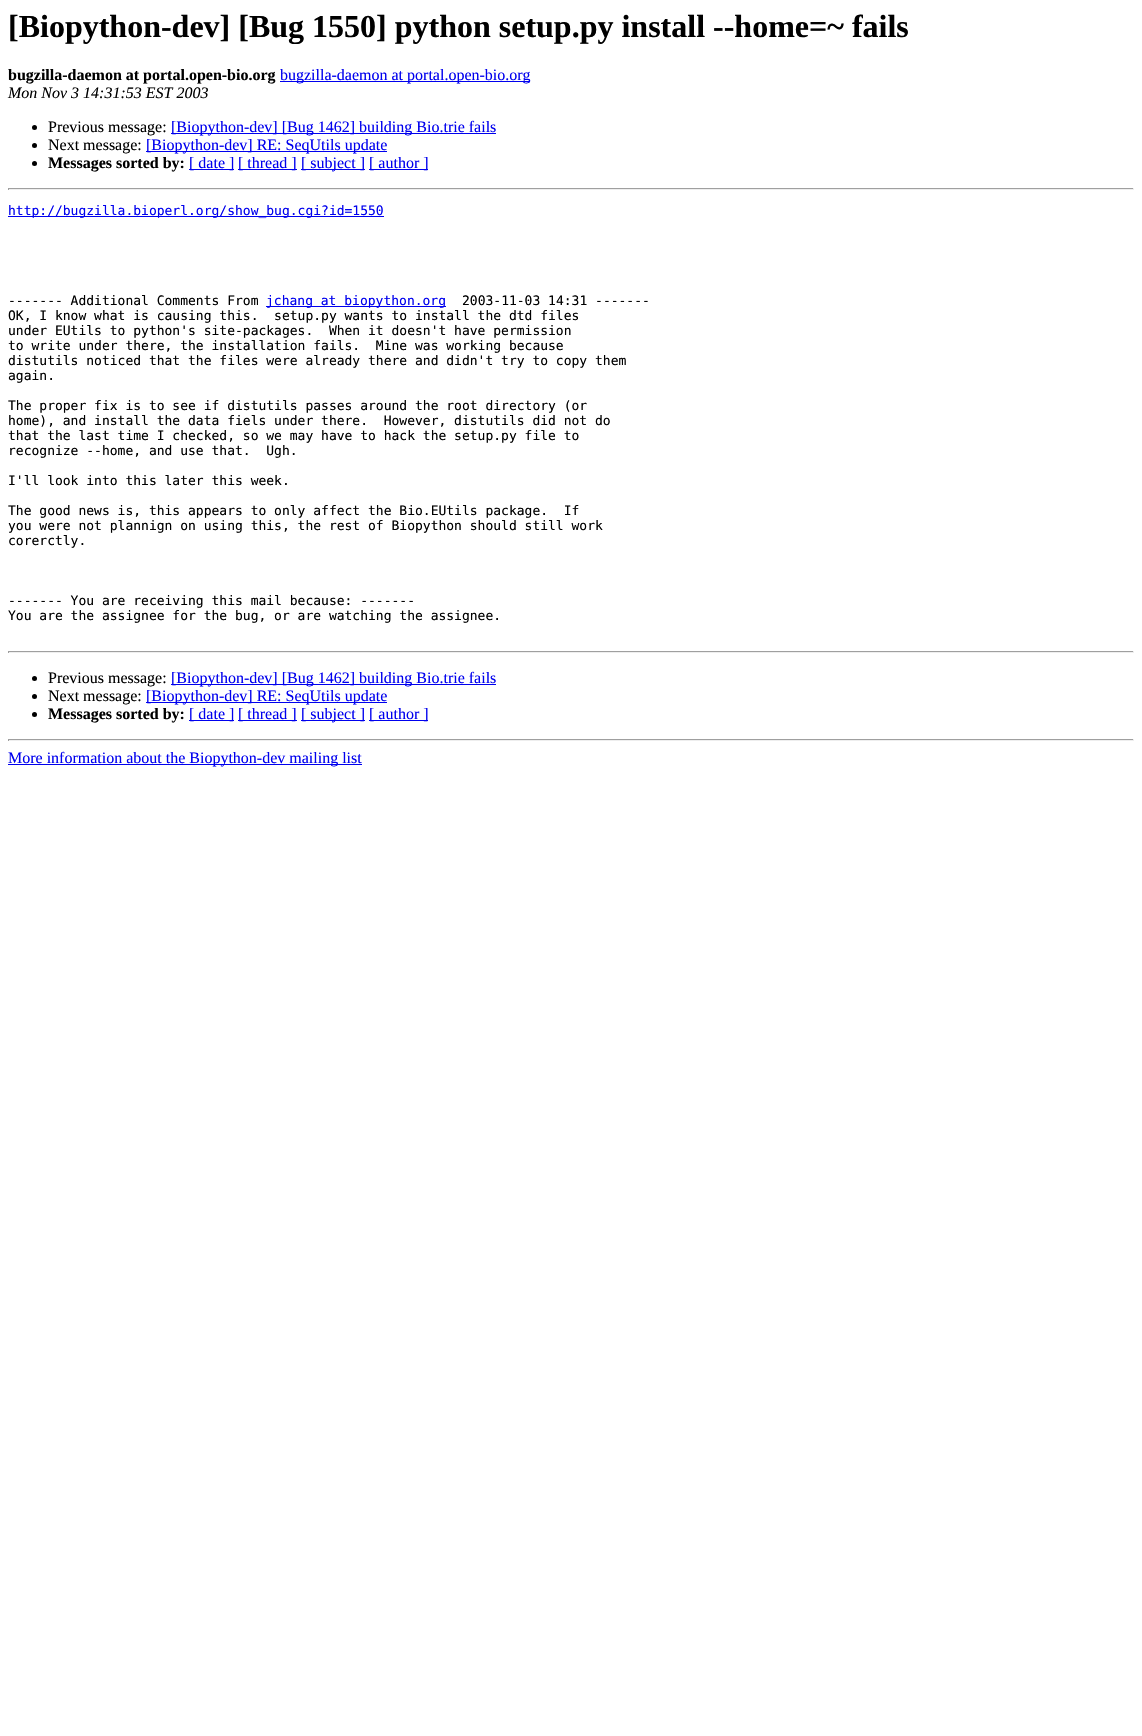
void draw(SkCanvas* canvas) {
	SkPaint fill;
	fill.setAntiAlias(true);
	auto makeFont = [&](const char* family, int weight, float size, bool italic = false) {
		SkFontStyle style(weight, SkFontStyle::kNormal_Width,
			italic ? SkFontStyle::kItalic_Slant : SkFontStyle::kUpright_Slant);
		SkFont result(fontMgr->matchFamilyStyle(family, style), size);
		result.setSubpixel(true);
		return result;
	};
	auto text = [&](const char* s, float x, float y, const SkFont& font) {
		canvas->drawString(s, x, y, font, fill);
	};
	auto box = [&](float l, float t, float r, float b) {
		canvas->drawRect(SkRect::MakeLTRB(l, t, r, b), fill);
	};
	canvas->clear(0xFFFFFFFF);
	fill.setColor(0xFF0000EE);
	box(280, 81, 530, 82);
	fill.setColor(0xFF000000);
	canvas->drawCircle(34.5f, 127.5f, 2.5f, fill);
	fill.setColor(0xFF0000EE);
	box(171, 133, 496, 134);
	fill.setColor(0xFF000000);
	canvas->drawCircle(34.5f, 145.5f, 2.5f, fill);
	fill.setColor(0xFF0000EE);
	box(146, 151, 387, 152);
	fill.setColor(0xFF000000);
	canvas->drawCircle(34.5f, 163.5f, 2.5f, fill);
	fill.setColor(0xFF0000EE);
	box(189, 169, 234, 170);
	box(238, 169, 297, 170);
	box(301, 169, 365, 170);
	box(369, 169, 428, 170);
	fill.setColor(0xFF9F9F9F);
	box(8, 188, 1134, 189);
	fill.setColor(0xFFEEEEEE);
	box(1133, 188, 1134, 190);
	box(8, 189, 1134, 190);
	fill.setColor(0xFF9F9F9F);
	box(8, 188, 9, 190);
	fill.setColor(0xFF0000EE);
	box(8, 216, 384, 217);
	box(266, 306, 446, 307);
	fill.setColor(0xFF9F9F9F);
	box(8, 651, 1134, 652);
	fill.setColor(0xFFEEEEEE);
	box(1133, 651, 1134, 653);
	box(8, 652, 1134, 653);
	fill.setColor(0xFF9F9F9F);
	box(8, 651, 9, 653);
	fill.setColor(0xFF000000);
	canvas->drawCircle(34.5f, 678.5f, 2.5f, fill);
	fill.setColor(0xFF0000EE);
	box(171, 684, 496, 685);
	fill.setColor(0xFF000000);
	canvas->drawCircle(34.5f, 696.5f, 2.5f, fill);
	fill.setColor(0xFF0000EE);
	box(146, 702, 387, 703);
	fill.setColor(0xFF000000);
	canvas->drawCircle(34.5f, 714.5f, 2.5f, fill);
	fill.setColor(0xFF0000EE);
	box(189, 720, 234, 721);
	box(238, 720, 297, 721);
	box(301, 720, 365, 721);
	box(369, 720, 428, 721);
	fill.setColor(0xFF9F9F9F);
	box(8, 739, 1134, 740);
	fill.setColor(0xFFEEEEEE);
	box(1133, 739, 1134, 741);
	box(8, 740, 1134, 741);
	fill.setColor(0xFF9F9F9F);
	box(8, 739, 9, 741);
	fill.setColor(0xFF0000EE);
	box(8, 764, 362, 765);
	auto font1 = makeFont("Liberation Serif", 700, 32);
	fill.setColor(0xFF000000);
	text("[Biopython-dev] [Bug 1550] python setup.py install --home=~ fails", 8, 37, font1);
	auto font2 = makeFont("Liberation Serif", 700, 16);
	text("bugzilla-daemon at portal.open-bio.org", 8, 80, font2);
	auto font3 = makeFont("Liberation Serif", 400, 16);
	fill.setColor(0xFF0000EE);
	text("bugzilla-daemon at portal.open-bio.org", 280, 80, font3);
	auto font4 = makeFont("Liberation Serif", 400, 16, true);
	fill.setColor(0xFF000000);
	text("Mon Nov 3 14:31:53 EST 2003", 8, 98, font4);
	text("Previous message:", 48, 132, font3);
	fill.setColor(0xFF0000EE);
	text("[Biopython-dev] [Bug 1462] building Bio.trie fails", 171, 132, font3);
	fill.setColor(0xFF000000);
	text("Next message:", 48, 150, font3);
	fill.setColor(0xFF0000EE);
	text("[Biopython-dev] RE: SeqUtils update", 146, 150, font3);
	fill.setColor(0xFF000000);
	text("Messages sorted by:", 48, 168, font2);
	fill.setColor(0xFF0000EE);
	text("[ date ]", 189, 168, font3);
	text("[ thread ]", 238, 168, font3);
	text("[ subject ]", 301, 168, font3);
	text("[ author ]", 369, 168, font3);
	auto font5 = makeFont("DejaVu Sans Mono", 400, 13);
	text("http://bugzilla.bioperl.org/show_bug.cgi?id=1550", 8, 215, font5);
	fill.setColor(0xFF000000);
	text("------- Additional Comments From", 8, 305, font5);
	fill.setColor(0xFF0000EE);
	text("jchang at biopython.org", 266, 305, font5);
	fill.setColor(0xFF000000);
	text("2003-11-03 14:31 -------", 462, 305, font5);
	text("OK, I know what is causing this.  setup.py wants to install the dtd files", 8, 320, font5);
	text("under EUtils to python's site-packages.  When it doesn't have permission", 8, 335, font5);
	text("to write under there, the installation fails.  Mine was working because", 8, 350, font5);
	text("distutils noticed that the files were already there and didn't try to copy them", 8, 365, font5);
	text("again.", 8, 380, font5);
	text("The proper fix is to see if distutils passes around the root directory (or", 8, 410, font5);
	text("home), and install the data fiels under there.  However, distutils did not do", 8, 425, font5);
	text("that the last time I checked, so we may have to hack the setup.py file to", 8, 440, font5);
	text("recognize --home, and use that.  Ugh.", 8, 455, font5);
	text("I'll look into this later this week.", 8, 485, font5);
	text("The good news is, this appears to only affect the Bio.EUtils package.  If", 8, 515, font5);
	text("you were not plannign on using this, the rest of Biopython should still work", 8, 530, font5);
	text("corerctly.", 8, 545, font5);
	text("------- You are receiving this mail because: -------", 8, 605, font5);
	text("You are the assignee for the bug, or are watching the assignee.", 8, 620, font5);
	text("Previous message:", 48, 683, font3);
	fill.setColor(0xFF0000EE);
	text("[Biopython-dev] [Bug 1462] building Bio.trie fails", 171, 683, font3);
	fill.setColor(0xFF000000);
	text("Next message:", 48, 701, font3);
	fill.setColor(0xFF0000EE);
	text("[Biopython-dev] RE: SeqUtils update", 146, 701, font3);
	fill.setColor(0xFF000000);
	text("Messages sorted by:", 48, 719, font2);
	fill.setColor(0xFF0000EE);
	text("[ date ]", 189, 719, font3);
	text("[ thread ]", 238, 719, font3);
	text("[ subject ]", 301, 719, font3);
	text("[ author ]", 369, 719, font3);
	text("More information about the Biopython-dev mailing list", 8, 763, font3);
}
